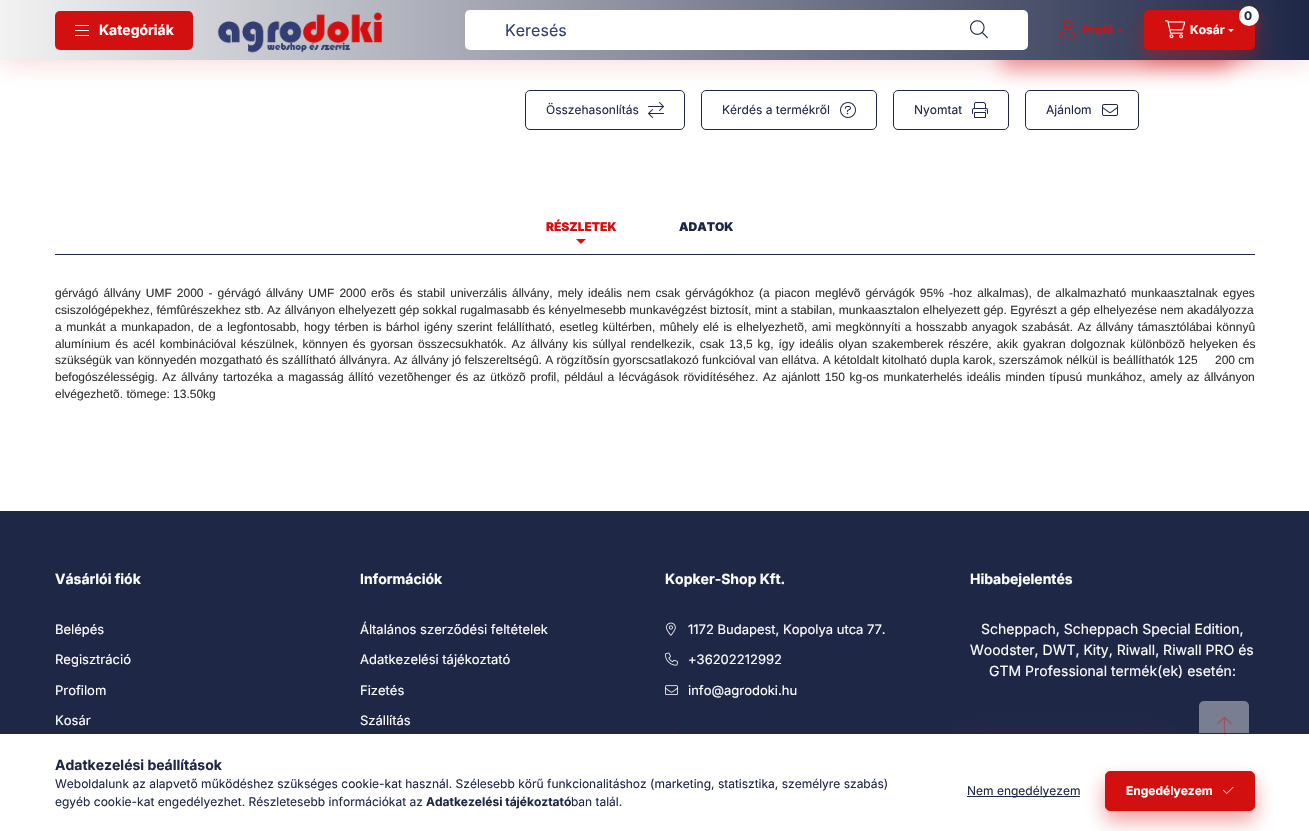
void draw(SkCanvas* canvas) {
	SkPaint fill;
	fill.setAntiAlias(true);
	auto makeFont = [&](const char* family, int weight, float size, bool italic = false) {
		SkFontStyle style(weight, SkFontStyle::kNormal_Width,
			italic ? SkFontStyle::kItalic_Slant : SkFontStyle::kUpright_Slant);
		SkFont result(fontMgr->matchFamilyStyle(family, style), size);
		result.setSubpixel(true);
		return result;
	};
	auto text = [&](const char* s, float x, float y, const SkFont& font) {
		canvas->drawString(s, x, y, font, fill);
	};
	auto spacedText = [&](const char* s, float x, float y, const SkFont& font, const SkPaint& ink, float letter, float word) {
		std::vector<SkGlyphID> glyphs(font.countText(s, strlen(s), SkTextEncoding::kUTF8));
		std::vector<float> xs(glyphs.size());
		font.textToGlyphs(s, strlen(s), SkTextEncoding::kUTF8, glyphs);
		font.getXPos(glyphs, xs, x);
		float extra = 0;
		for (size_t i = 0; i < glyphs.size(); i++) {
			xs[i] += extra;
			extra += letter + word * (glyphs[i] == font.unicharToGlyph(' '));
		}
		canvas->drawTextBlob(SkTextBlob::MakeFromPosHGlyphs(glyphs, xs, y, font), 0, 0, ink);
	};
	auto box = [&](float l, float t, float r, float b) {
		canvas->drawRect(SkRect::MakeLTRB(l, t, r, b), fill);
	};
	auto roundBox = [&](float l, float t, float r, float b, float radius) {
		canvas->drawRoundRect(SkRect::MakeLTRB(l, t, r, b), radius, radius, fill);
	};
	auto picture = [&](const char* path, float l, float t, float r, float b) {
		auto image = SkImages::DeferredFromEncodedData(SkData::MakeFromFileName(path));
		canvas->drawImageRect(image, SkRect::MakeLTRB(l, t, r, b), SkSamplingOptions());
	};
	canvas->clear(0xFFFFFFFF);
	fill.setStyle(SkPaint::kStroke_Style);
	fill.setStrokeWidth(1);
	fill.setColor(0xFF1F2747);
	canvas->drawRoundRect(SkRect::MakeLTRB(525.5f, 90.5f, 684.5f, 129.5f), 4.5f, 4.5f, fill);
	picture("image4.png", 648, 102, 664, 118);
	canvas->drawRoundRect(SkRect::MakeLTRB(701.5f, 90.5f, 876.5f, 129.5f), 4.5f, 4.5f, fill);
	picture("image5.png", 840, 102, 856, 118);
	fill.setStyle(SkPaint::kFill_Style);
	fill.setColor(0x66D31010);
	fill.setMaskFilter(SkMaskFilter::MakeBlur(kNormal_SkBlurStyle, 10));
	canvas->drawRoundRect(SkRect::MakeLTRB(1001, 10, 1231, 70), 5, 5, fill);
	fill.setMaskFilter(nullptr);
	fill.setStyle(SkPaint::kStroke_Style);
	fill.setColor(0xFF1F2747);
	canvas->drawRoundRect(SkRect::MakeLTRB(893.5f, 90.5f, 1008.5f, 129.5f), 4.5f, 4.5f, fill);
	picture("image6.png", 972, 102, 988, 118);
	canvas->drawRoundRect(SkRect::MakeLTRB(1025.5f, 90.5f, 1138.5f, 129.5f), 4.5f, 4.5f, fill);
	picture("image7.png", 1102, 104, 1118, 116);
	fill.setStyle(SkPaint::kFill_Style);
	fill.setColor(0x33D31010);
	fill.setMaskFilter(SkMaskFilter::MakeBlur(kNormal_SkBlurStyle, 15));
	canvas->drawRect(SkRect::MakeLTRB(0, 0, 1309, 60), fill);
	fill.setMaskFilter(nullptr);
	{
		const SkColor colors[] = {0xFFF2F2F2, 0xFF1F2747};
		const float stops[] = {0, 1};
		const SkPoint ends[] = {{0, 416}, {1309, 415}};
		fill.setShader(SkGradientShader::MakeLinear(ends, colors, stops, 2, SkTileMode::kClamp));
		fill.setAlpha(255);
	}
	box(0, 0, 1309, 60);
	fill.setShader(nullptr);
	fill.setColor(0xFFD31010);
	roundBox(55, 11, 193, 50, 5);
	fill.setColor(0xFFFFFFFF);
	box(75, 25, 89, 26);
	box(75, 30, 89, 31);
	box(75, 35, 89, 36);
	picture("image0.png", 217, 12, 382, 53);
	roundBox(465, 10, 1028, 50, 5);
	picture("image1.png", 970, 20, 988, 39);
	picture("image2.png", 1060, 20, 1076, 39);
	fill.setColor(0x66D31010);
	fill.setMaskFilter(SkMaskFilter::MakeBlur(kNormal_SkBlurStyle, 10));
	canvas->drawRoundRect(SkRect::MakeLTRB(1144, 20, 1255, 60), 5, 5, fill);
	fill.setMaskFilter(nullptr);
	fill.setColor(0xFFD31010);
	canvas->drawPath(SkPathBuilder().moveTo(1117, 29).lineTo(1123, 29).lineTo(1120, 32).close().detach(), fill);
	roundBox(1144, 10, 1255, 50, 5);
	fill.setColor(0x66D31010);
	fill.setMaskFilter(SkMaskFilter::MakeBlur(kNormal_SkBlurStyle, 5));
	canvas->drawRoundRect(SkRect::MakeLTRB(1239, 11, 1259, 31), 10, 10, fill);
	fill.setMaskFilter(nullptr);
	fill.setColor(0xFFFFFFFF);
	canvas->drawCircle(1249, 16, 10, fill);
	picture("image3.png", 1165, 20, 1186, 39);
	canvas->drawPath(SkPathBuilder().moveTo(1228, 29).lineTo(1234, 29).lineTo(1231, 32).close().detach(), fill);
	fill.setColor(0xFF1F2747);
	box(55, 254, 1255, 255);
	fill.setColor(0xFFD31010);
	canvas->drawPath(SkPathBuilder().moveTo(576, 239).lineTo(586, 239).lineTo(581, 244).close().detach(), fill);
	fill.setColor(0xFF1F2747);
	box(0, 511, 1309, 733);
	picture("image8.png", 666, 622, 676, 636);
	picture("image9.png", 665, 652, 678, 666);
	picture("image10.png", 665, 685, 678, 695);
	picture("image11.png", 671, 732, 674, 733);
	picture("image12.png", 710, 732, 711, 733);
	fill.setColor(0x66D31010);
	fill.setMaskFilter(SkMaskFilter::MakeBlur(kNormal_SkBlurStyle, 10));
	canvas->drawRoundRect(SkRect::MakeLTRB(970, 743, 1160, 785), 5, 5, fill);
	fill.setMaskFilter(nullptr);
	fill.setColor(0xFF797E91);
	roundBox(1199, 701, 1249, 751, 5);
	picture("image13.png", 1217, 716, 1232, 733);
	fill.setColor(0xFFFFFFFF);
	box(951, 734, 1249, 804);
	fill.setColor(0xFF1F2747);
	box(0, 733, 1309, 734);
	box(967, 796, 1080, 797);
	fill.setColor(0x66D31010);
	fill.setMaskFilter(SkMaskFilter::MakeBlur(kNormal_SkBlurStyle, 10));
	canvas->drawRoundRect(SkRect::MakeLTRB(1105, 781, 1255, 821), 5, 5, fill);
	fill.setMaskFilter(nullptr);
	fill.setColor(0xFFD31010);
	canvas->drawRoundRect(SkRect::MakeLTRB(1105.5f, 771.5f, 1254.5f, 810.5f), 4.5f, 4.5f, fill);
	fill.setStyle(SkPaint::kStroke_Style);
	canvas->drawRoundRect(SkRect::MakeLTRB(1105.5f, 771.5f, 1254.5f, 810.5f), 4.5f, 4.5f, fill);
	picture("image14.png", 1223, 786, 1234, 794);
	auto font1 = makeFont("Inter", 700, 14);
	fill.setStyle(SkPaint::kFill_Style);
	fill.setColor(0xFFFFFFFF);
	text("Kategóriák", 99, 35, font1);
	auto font2 = makeFont("Inter", 400, 16);
	fill.setColor(0xFF333F73);
	text("Keresés", 505, 36, font2);
	auto font3 = makeFont("Inter", 700, 12);
	fill.setColor(0xFFD31010);
	text("Profil", 1082, 34, font3);
	fill.setColor(0xFF1F2747);
	text("0", 1244, 20, font3);
	fill.setColor(0xFFFFFFFF);
	text("Kosár", 1190, 34, font3);
	auto font4 = makeFont("Inter", 400, 12);
	fill.setColor(0xFF1F2747);
	text("Összehasonlítás", 546, 114, font4);
	text("Kérdés a termékről", 722, 114, font4);
	text("Nyomtat", 914, 114, font4);
	text("Ajánlom", 1046, 114, font4);
	auto font5 = makeFont("Inter", 900, 12);
	fill.setColor(0xFFD31010);
	text("RÉSZLETEK", 546, 231, font5);
	fill.setColor(0xFF1F2747);
	text("ADATOK", 679, 231, font5);
	auto font6 = makeFont("Liberation Sans", 400, 12);
	fill.setColor(0xFF323232);
	spacedText("gérvágó állvány UMF 2000 - gérvágó állvány UMF 2000 erõs és stabil univerzális állvány, mely ideális nem csak gérvágókhoz (a piacon meglévõ gérvágók 95% -hoz alkalmas), de alkalmazható munkaasztalnak egyes", 55, 297, font6, fill, 0, 1.7f);
	text("csiszológépekhez, fémfûrészekhez stb. Az állványon elhelyezett gép sokkal rugalmasabb és kényelmesebb munkavégzést biztosít, mint a stabilan, munkaasztalon elhelyezett gép. Egyrészt a gép elhelyezése nem akadályozza", 55, 314, font6);
	spacedText("a munkát a munkapadon, de a legfontosabb, hogy térben is bárhol igény szerint felállítható, esetleg kültérben, mûhely elé is elhelyezhetõ, ami megkönnyíti a hosszabb anyagok szabását. Az állvány támasztólábai könnyû", 55, 331, font6, fill, 0, 1.15f);
	spacedText("alumínium és acél kombinációval készülnek, könnyen és gyorsan összecsukhatók. Az állvány kis súllyal rendelkezik, csak 13,5 kg, így ideális olyan szakemberek részére, akik gyakran dolgoznak különbözõ helyeken és", 55, 348, font6, fill, 0, 1.6f);
	text("szükségük van könnyedén mozgatható és szállítható állványra. Az állvány jó felszereltségû. A rögzítõsín gyorscsatlakozó funkcióval van ellátva. A kétoldalt kitolható dupla karok, szerszámok nélkül is beállíthatók 125", 55, 364, font6);
	text("200 cm", 1215, 364, font6);
	spacedText("befogószélességig. Az állvány tartozéka a magasság állító vezetõhenger és az ütközõ profil, például a lécvágások rövidítéséhez. Az ajánlott 150 kg-os munkaterhelés ideális minden típusú munkához, amely az állványon", 55, 381, font6, fill, 0, 1.3f);
	text("elvégezhetõ. tömege: 13.50kg", 55, 398, font6);
	fill.setColor(0xFFFFFFFF);
	text("Vásárlói fiók", 55, 584, font1);
	auto font7 = makeFont("Inter", 400, 13);
	text("Belépés", 55, 634, font7);
	text("Regisztráció", 55, 664, font7);
	text("Profilom", 55, 695, font7);
	text("Kosár", 55, 725, font7);
	text("Információk", 360, 584, font1);
	text("Általános szerződési feltételek", 360, 634, font7);
	text("Adatkezelési tájékoztató", 360, 664, font7);
	text("Fizetés", 360, 695, font7);
	text("Szállítás", 360, 725, font7);
	text("Kopker-Shop Kft.", 665, 584, font1);
	text("1172 Budapest, Kopolya utca 77.", 688, 634, font7);
	text("+36202212992", 688, 664, font7);
	text("info@agrodoki.hu", 688, 695, font7);
	text("Hibabejelentés", 970, 584, font1);
	auto font8 = makeFont("Inter", 400, 14);
	text("Scheppach, Scheppach Special Edition,", 981, 634, font8);
	text("Woodster, DWT, Kity, Riwall, Riwall PRO és", 970, 655, font8);
	text("GTM Professional termék(ek) esetén:", 989, 676, font8);
	fill.setColor(0xFF1F2747);
	text("Adatkezelési beállítások", 55, 770, font1);
	text("Weboldalunk az alapvető működéshez szükséges cookie-kat használ. Szélesebb körű funkcionalitáshoz (marketing, statisztika, személyre szabás)", 55, 788, font4);
	text("egyéb cookie-kat engedélyezhet. Részletesebb információkat az", 55, 806, font4);
	text("Adatkezelési tájékoztató", 426, 806, font3);
	text("ban talál.", 571, 806, font4);
	text("Nem engedélyezem", 967, 795, font4);
	fill.setColor(0xFFFFFFFF);
	text("Engedélyezem", 1126, 795, font3);
}
